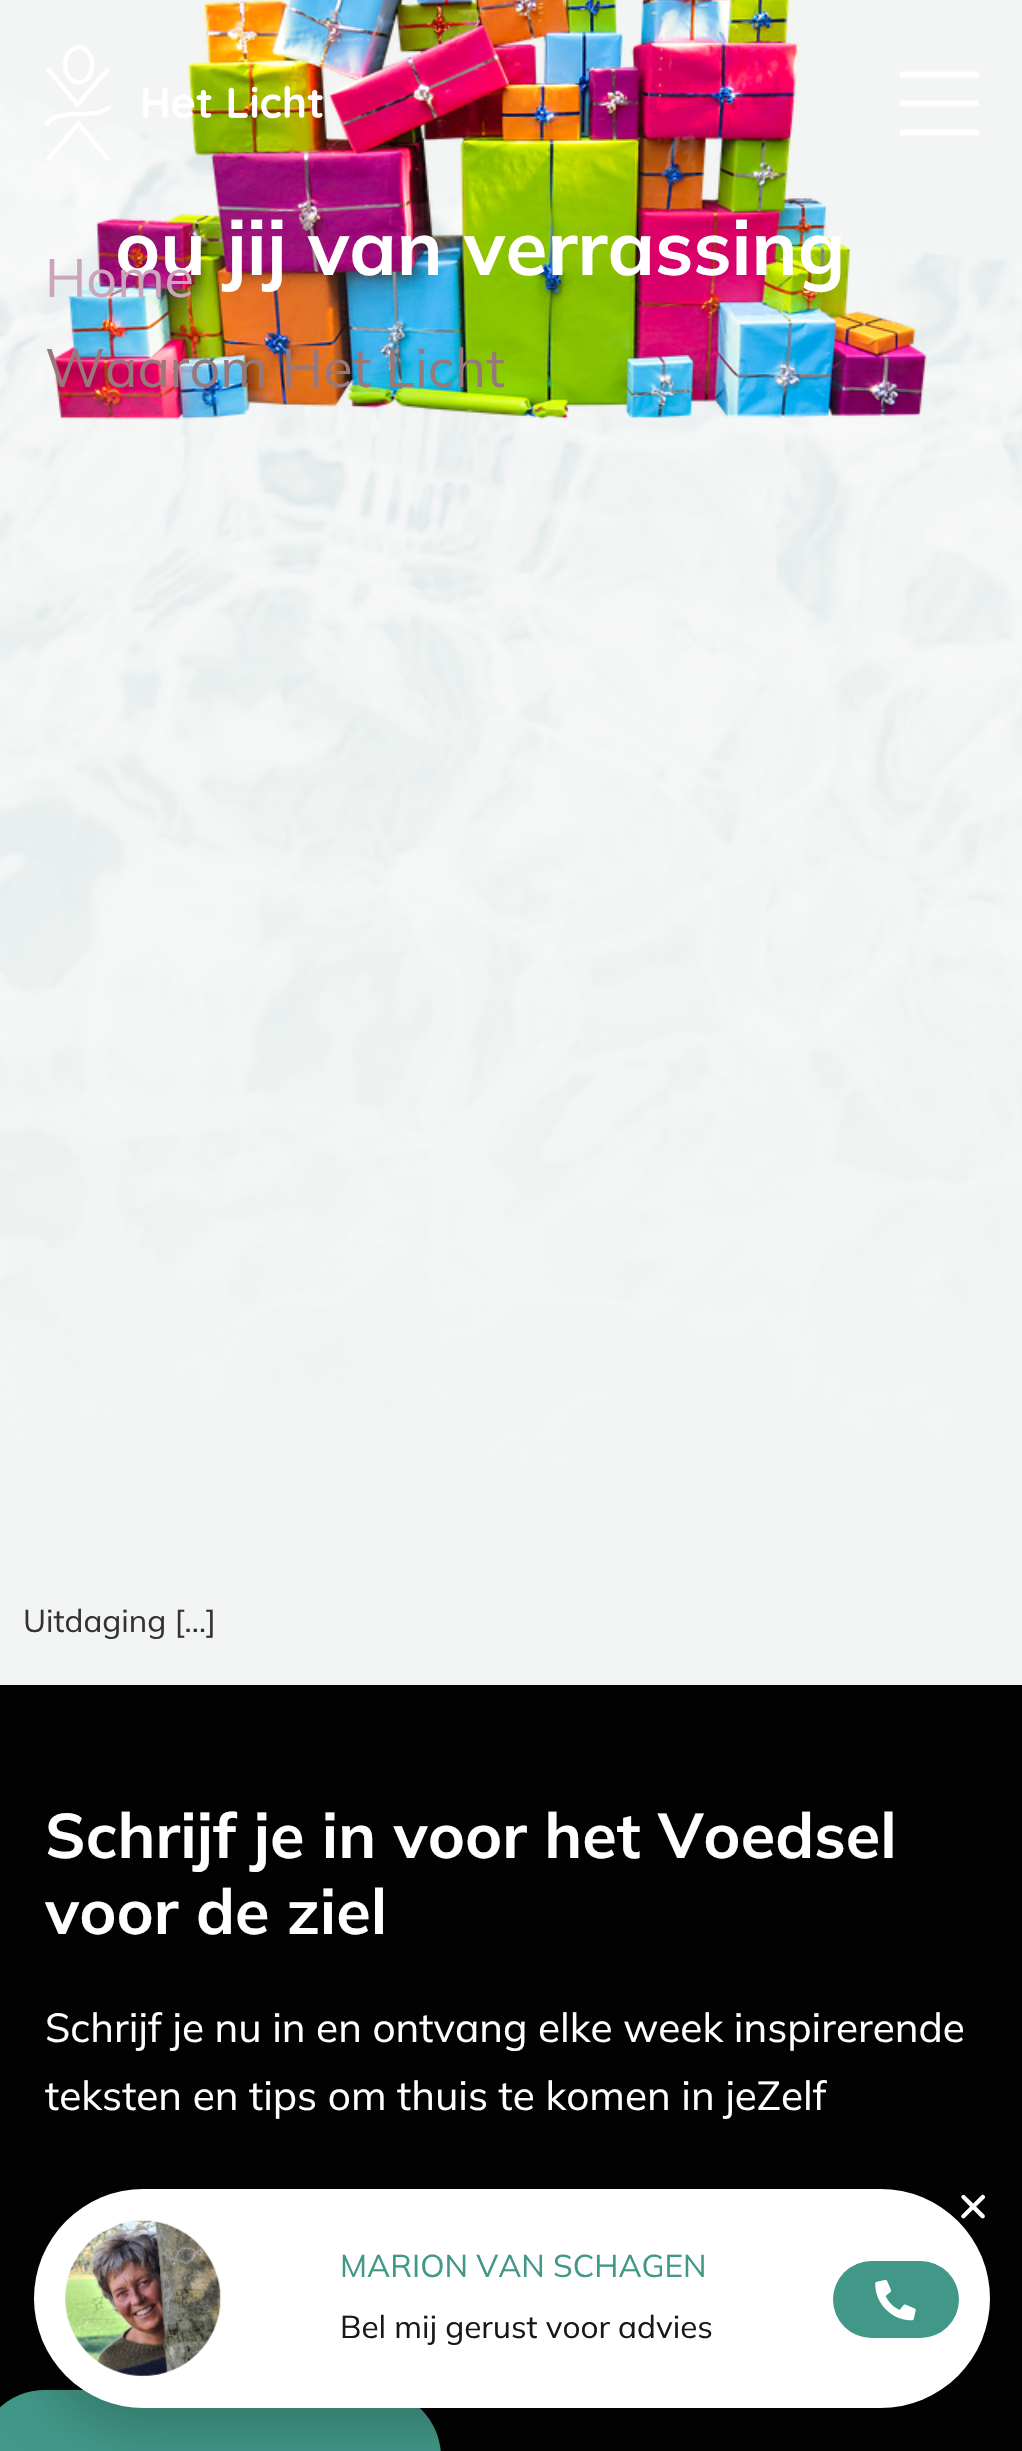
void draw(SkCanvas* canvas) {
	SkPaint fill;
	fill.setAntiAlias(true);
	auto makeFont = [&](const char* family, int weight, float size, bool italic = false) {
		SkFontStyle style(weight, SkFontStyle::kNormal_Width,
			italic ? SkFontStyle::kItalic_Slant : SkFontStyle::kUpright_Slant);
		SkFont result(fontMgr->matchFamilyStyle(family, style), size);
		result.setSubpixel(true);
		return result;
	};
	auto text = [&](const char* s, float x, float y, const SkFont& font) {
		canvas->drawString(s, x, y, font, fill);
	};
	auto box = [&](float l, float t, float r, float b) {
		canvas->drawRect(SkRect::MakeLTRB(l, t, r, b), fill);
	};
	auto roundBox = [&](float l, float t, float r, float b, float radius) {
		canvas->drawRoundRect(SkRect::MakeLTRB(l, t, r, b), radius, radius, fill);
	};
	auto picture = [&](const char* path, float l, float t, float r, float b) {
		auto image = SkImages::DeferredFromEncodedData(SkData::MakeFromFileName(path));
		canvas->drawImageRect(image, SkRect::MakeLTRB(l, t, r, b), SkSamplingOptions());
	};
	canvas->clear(0xFFF2F5F3);
	picture("image0.png", 0, 95, 1022, 1576);
	picture("image1.png", 53, 0, 927, 420);
	picture("image2.png", 45, 45, 323, 161);
	canvas->save();
	canvas->clipRect(SkRect::MakeLTRB(900, 70, 979, 137));
	fill.setStyle(SkPaint::kStroke_Style);
	fill.setStrokeWidth(6);
	fill.setColor(0xFFFFFFFF);
	canvas->drawPath(SkPathBuilder().moveTo(900, 74.5f).lineTo(979.5f, 74.5f).detach(), fill);
	canvas->drawPath(SkPathBuilder().moveTo(900, 103.5f).lineTo(979.5f, 103.5f).detach(), fill);
	canvas->drawPath(SkPathBuilder().moveTo(900, 132.5f).lineTo(979.5f, 132.5f).detach(), fill);
	canvas->restore();
	fill.setStyle(SkPaint::kFill_Style);
	fill.setColor(0xFF020203);
	box(0, 1685, 1022, 2451);
	fill.setColor(0xFF419888);
	roundBox(-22, 2390, 441, 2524, 73);
	fill.setColor(0x33000000);
	fill.setMaskFilter(SkMaskFilter::MakeBlur(kNormal_SkBlurStyle, 26));
	canvas->drawRoundRect(SkRect::MakeLTRB(32, 2201, 1001, 2432), 115.5f, 115.5f, fill);
	fill.setMaskFilter(nullptr);
	fill.setColor(0xFFFFFFFF);
	roundBox(34, 2189, 990, 2408, 109.5f);
	picture("image3.png", 961, 2194, 986, 2219);
	picture("image4.png", 65, 2220, 221, 2377);
	fill.setColor(0xFF419888);
	roundBox(833, 2261, 959, 2338, 38.5f);
	picture("image5.png", 875, 2279, 916, 2321);
	auto font1 = makeFont("Mulish", 700, 76.5f);
	fill.setColor(0xFFFFFFFF);
	text("ou jij van verrassing", 115, 275, font1);
	auto font2 = makeFont("Mulish", 400, 54);
	fill.setColor(0xFFCAA6BD);
	text("Home", 45, 297, font2);
	fill.setColor(0xFF97797C);
	text("Waarom Het Licht", 45, 387, font2);
	auto font3 = makeFont("Mulish", 400, 31.5f);
	fill.setColor(0xFF333333);
	text("Uitdaging […]", 23, 1632, font3);
	auto font4 = makeFont("Mulish", 700, 63);
	fill.setColor(0xFFFFFFFF);
	text("Schrijf je in voor het Voedsel", 45, 1858, font4);
	text("voor de ziel", 45, 1934, font4);
	auto font5 = makeFont("Mulish", 400, 40.5f);
	text("Schrijf je nu in en ontvang elke week inspirerende", 45, 2042, font5);
	text("teksten en tips om thuis te komen in jeZelf", 45, 2110, font5);
	fill.setColor(0xFF419888);
	text("MARION VAN SCHAGEN", 340, 2277, font3);
	fill.setColor(0xFF181818);
	text("Bel mij gerust voor advies", 340, 2338, font3);
}
